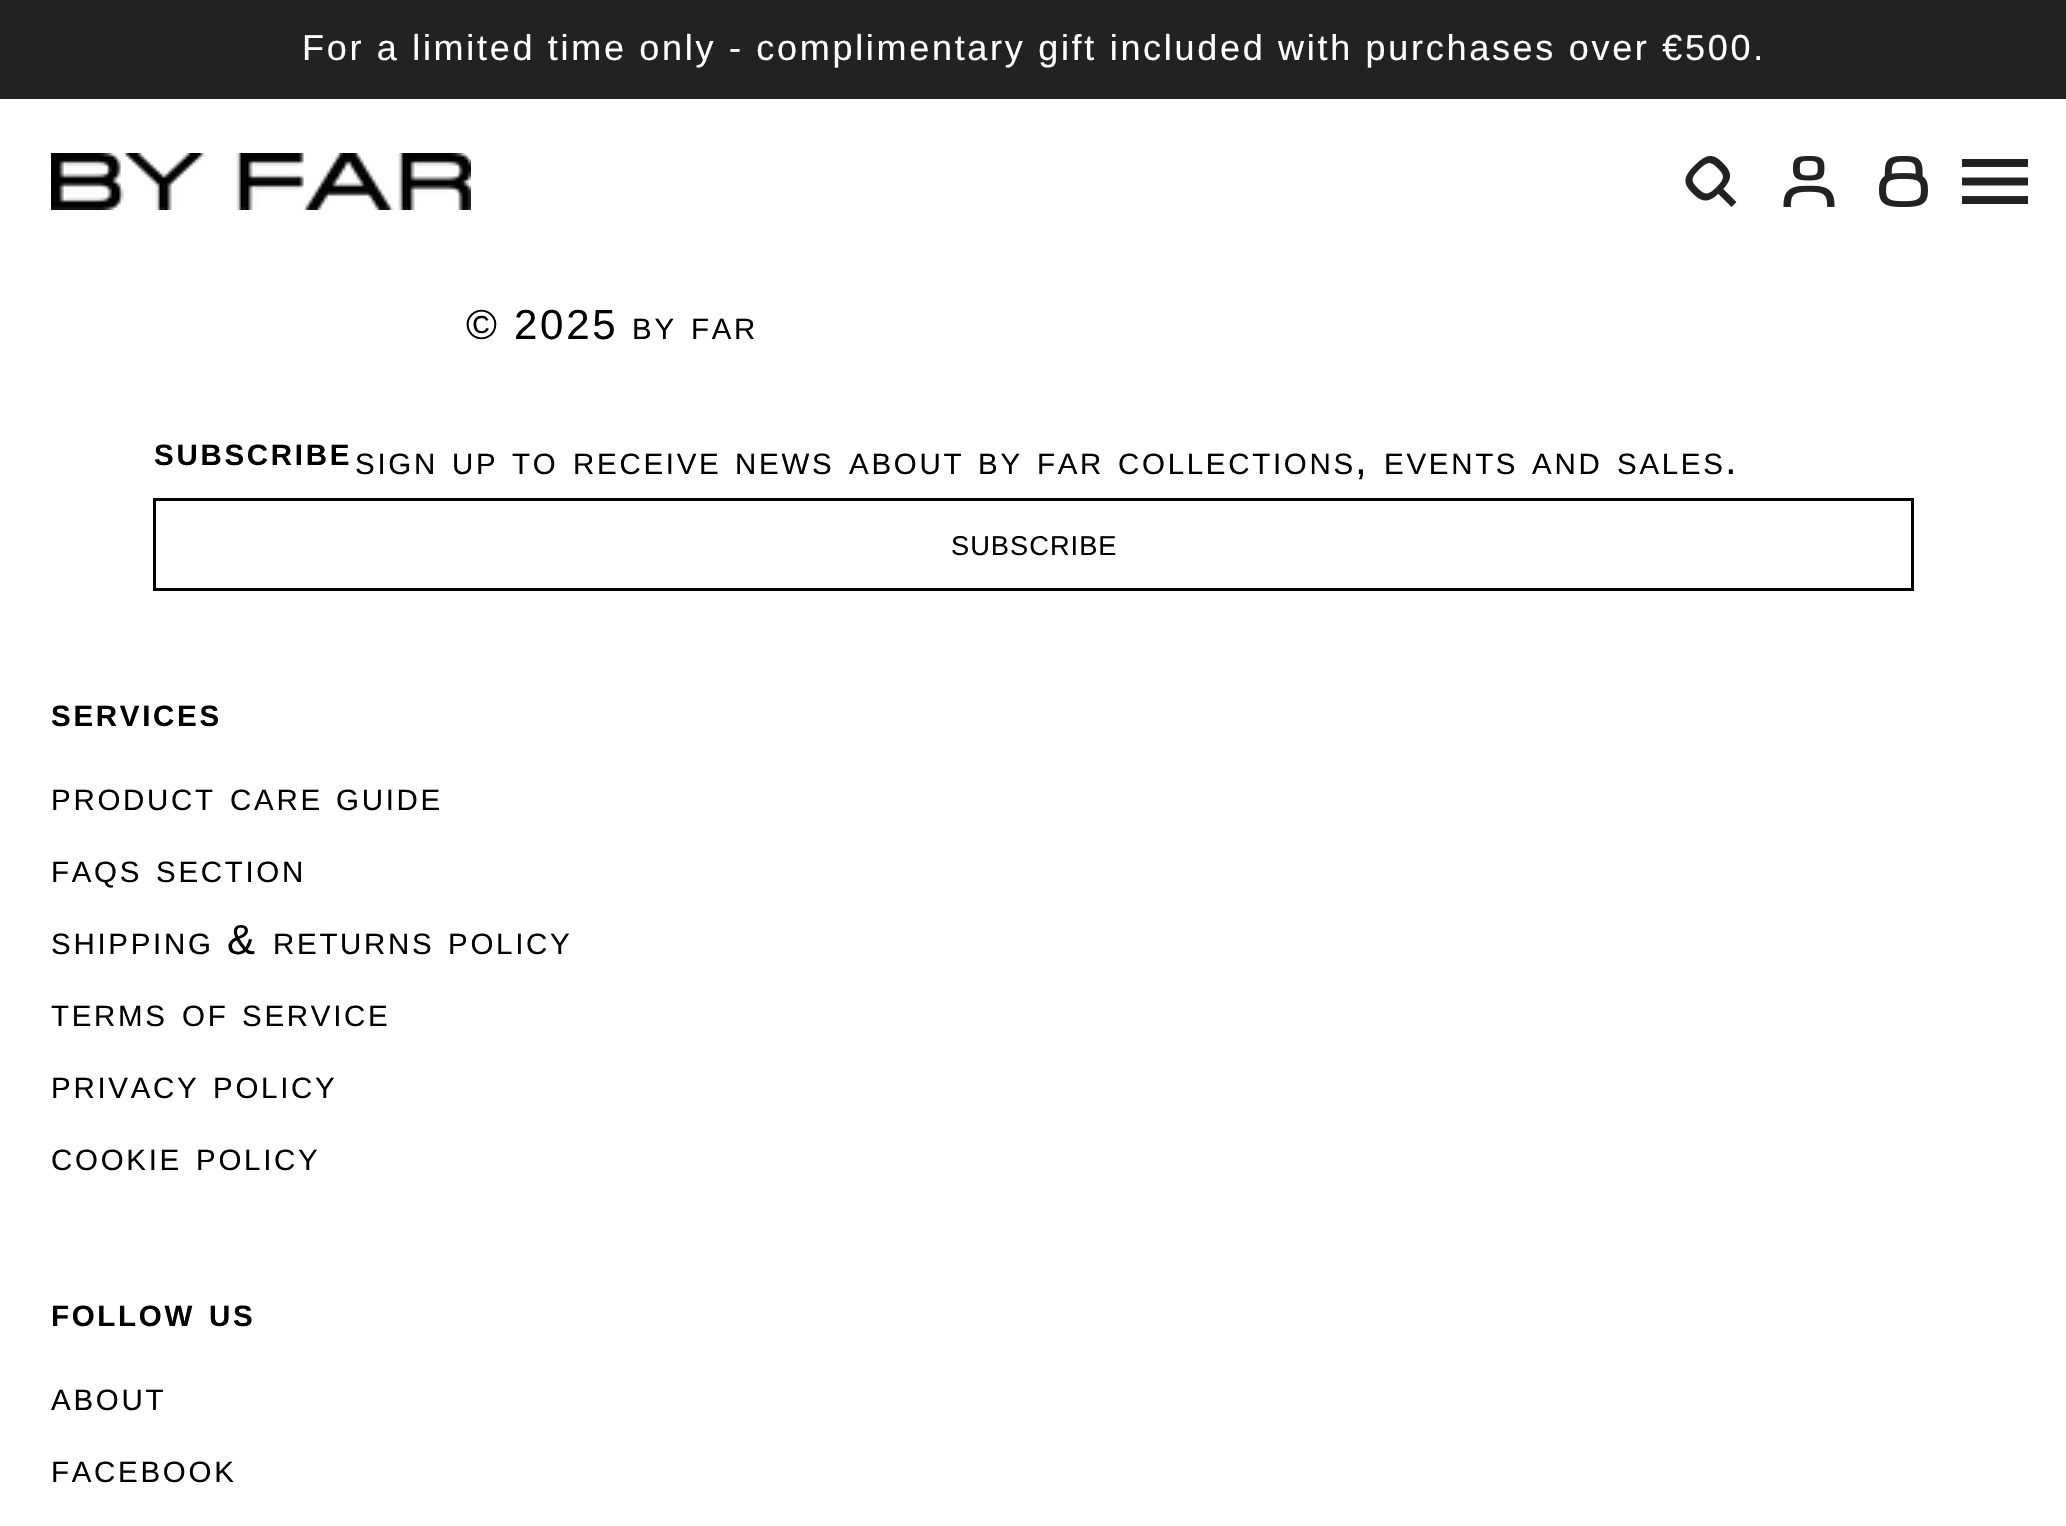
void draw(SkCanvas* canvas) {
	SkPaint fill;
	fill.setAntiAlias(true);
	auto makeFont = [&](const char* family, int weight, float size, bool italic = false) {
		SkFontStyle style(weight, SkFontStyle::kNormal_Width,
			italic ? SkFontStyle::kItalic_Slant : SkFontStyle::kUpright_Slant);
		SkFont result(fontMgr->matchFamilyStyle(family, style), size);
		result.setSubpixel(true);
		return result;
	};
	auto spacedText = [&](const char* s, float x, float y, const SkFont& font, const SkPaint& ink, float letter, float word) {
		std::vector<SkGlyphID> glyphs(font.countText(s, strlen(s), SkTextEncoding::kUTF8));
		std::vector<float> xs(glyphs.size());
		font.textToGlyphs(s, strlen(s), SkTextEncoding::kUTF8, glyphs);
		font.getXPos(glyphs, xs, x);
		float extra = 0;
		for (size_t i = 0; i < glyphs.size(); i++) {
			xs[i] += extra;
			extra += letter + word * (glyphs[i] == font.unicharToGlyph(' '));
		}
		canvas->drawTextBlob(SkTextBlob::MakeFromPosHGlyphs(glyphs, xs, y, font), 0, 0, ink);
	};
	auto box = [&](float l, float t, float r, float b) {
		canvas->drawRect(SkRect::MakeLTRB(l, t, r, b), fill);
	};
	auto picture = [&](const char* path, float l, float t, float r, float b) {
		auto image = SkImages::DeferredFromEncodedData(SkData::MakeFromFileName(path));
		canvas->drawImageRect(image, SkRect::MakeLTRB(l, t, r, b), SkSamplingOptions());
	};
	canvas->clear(0xFFFFFFFF);
	fill.setColor(0xFF222222);
	box(0, 0, 2066, 99);
	picture("image0.png", 51, 153, 471, 210);
	picture("image1.png", 1685, 156, 1737, 207);
	picture("image2.png", 1783, 156, 1835, 207);
	picture("image3.png", 1879, 156, 1928, 207);
	picture("image4.png", 1962, 159, 2028, 204);
	fill.setStyle(SkPaint::kStroke_Style);
	fill.setStrokeWidth(3);
	fill.setColor(0xFF000000);
	canvas->drawRect(SkRect::MakeLTRB(154.5f, 499.5f, 1912.5f, 589.5f), fill);
	auto font1 = makeFont("Liberation Sans", 400, 36);
	fill.setStyle(SkPaint::kFill_Style);
	fill.setColor(0xFFFFFFFF);
	spacedText("For a limited time only - complimentary gift included with purchases over €500.", 302, 60, font1, fill, 2.7f, 0);
	auto font2 = makeFont("Liberation Sans", 400, 42);
	fill.setColor(0xFF000000);
	spacedText("© 2025", 466, 339, font2, fill, 2.7f, 0);
	auto font3 = makeFont("Liberation Sans", 400, 29.5f);
	spacedText("BY", 632, 339, font3, fill, 2.7f, 0);
	spacedText("FAR", 691, 339, font3, fill, 2.7f, 0);
	auto font4 = makeFont("Liberation Sans", 700, 29.5f);
	spacedText("SUBSCRIBE", 154, 465, font4, fill, 2.7f, 0);
	spacedText("SIGN", 355, 474, font3, fill, 2.7f, 0);
	spacedText("UP", 452, 474, font3, fill, 2.7f, 0);
	spacedText("TO", 512, 474, font3, fill, 2.7f, 0);
	spacedText("RECEIVE", 573, 474, font3, fill, 2.7f, 0);
	spacedText("NEWS", 735, 474, font3, fill, 2.7f, 0);
	spacedText("ABOUT", 849, 474, font3, fill, 2.7f, 0);
	spacedText("BY", 978, 474, font3, fill, 2.7f, 0);
	spacedText("FAR", 1037, 474, font3, fill, 2.7f, 0);
	spacedText("COLLECTIONS", 1118, 474, font3, fill, 2.7f, 0);
	spacedText(",", 1355, 474, font2, fill, 2.7f, 0);
	spacedText("EVENTS", 1384, 474, font3, fill, 2.7f, 0);
	spacedText("AND", 1532, 474, font3, fill, 2.7f, 0);
	spacedText("SALES", 1617, 474, font3, fill, 2.7f, 0);
	spacedText(".", 1725, 474, font2, fill, 2.7f, 0);
	auto font5 = makeFont("Liberation Sans", 400, 27.25f);
	spacedText("SUBSCRIBE", 951, 555, font5, fill, 1, 0);
	spacedText("SERVICES", 51, 726, font4, fill, 2.7f, 0);
	spacedText("PRODUCT", 51, 810, font3, fill, 2.7f, 0);
	spacedText("CARE", 230, 810, font3, fill, 2.7f, 0);
	spacedText("GUIDE", 336, 810, font3, fill, 2.7f, 0);
	spacedText("FAQS", 51, 882, font3, fill, 2.7f, 0);
	spacedText("SECTION", 156, 882, font3, fill, 2.7f, 0);
	spacedText("SHIPPING", 51, 954, font3, fill, 2.7f, 0);
	spacedText("&", 227, 954, font2, fill, 2.7f, 0);
	spacedText("RETURNS", 273, 954, font3, fill, 2.7f, 0);
	spacedText("POLICY", 448, 954, font3, fill, 2.7f, 0);
	spacedText("TERMS", 51, 1026, font3, fill, 2.7f, 0);
	spacedText("OF", 182, 1026, font3, fill, 2.7f, 0);
	spacedText("SERVICE", 242, 1026, font3, fill, 2.7f, 0);
	spacedText("PRIVACY", 51, 1098, font3, fill, 2.7f, 0);
	spacedText("POLICY", 213, 1098, font3, fill, 2.7f, 0);
	spacedText("COOKIE", 51, 1170, font3, fill, 2.7f, 0);
	spacedText("POLICY", 196, 1170, font3, fill, 2.7f, 0);
	spacedText("FOLLOW", 51, 1326, font4, fill, 2.7f, 0);
	spacedText("US", 209, 1326, font4, fill, 2.7f, 0);
	spacedText("ABOUT", 51, 1410, font3, fill, 2.7f, 0);
	spacedText("FACEBOOK", 51, 1482, font3, fill, 2.7f, 0);
}
